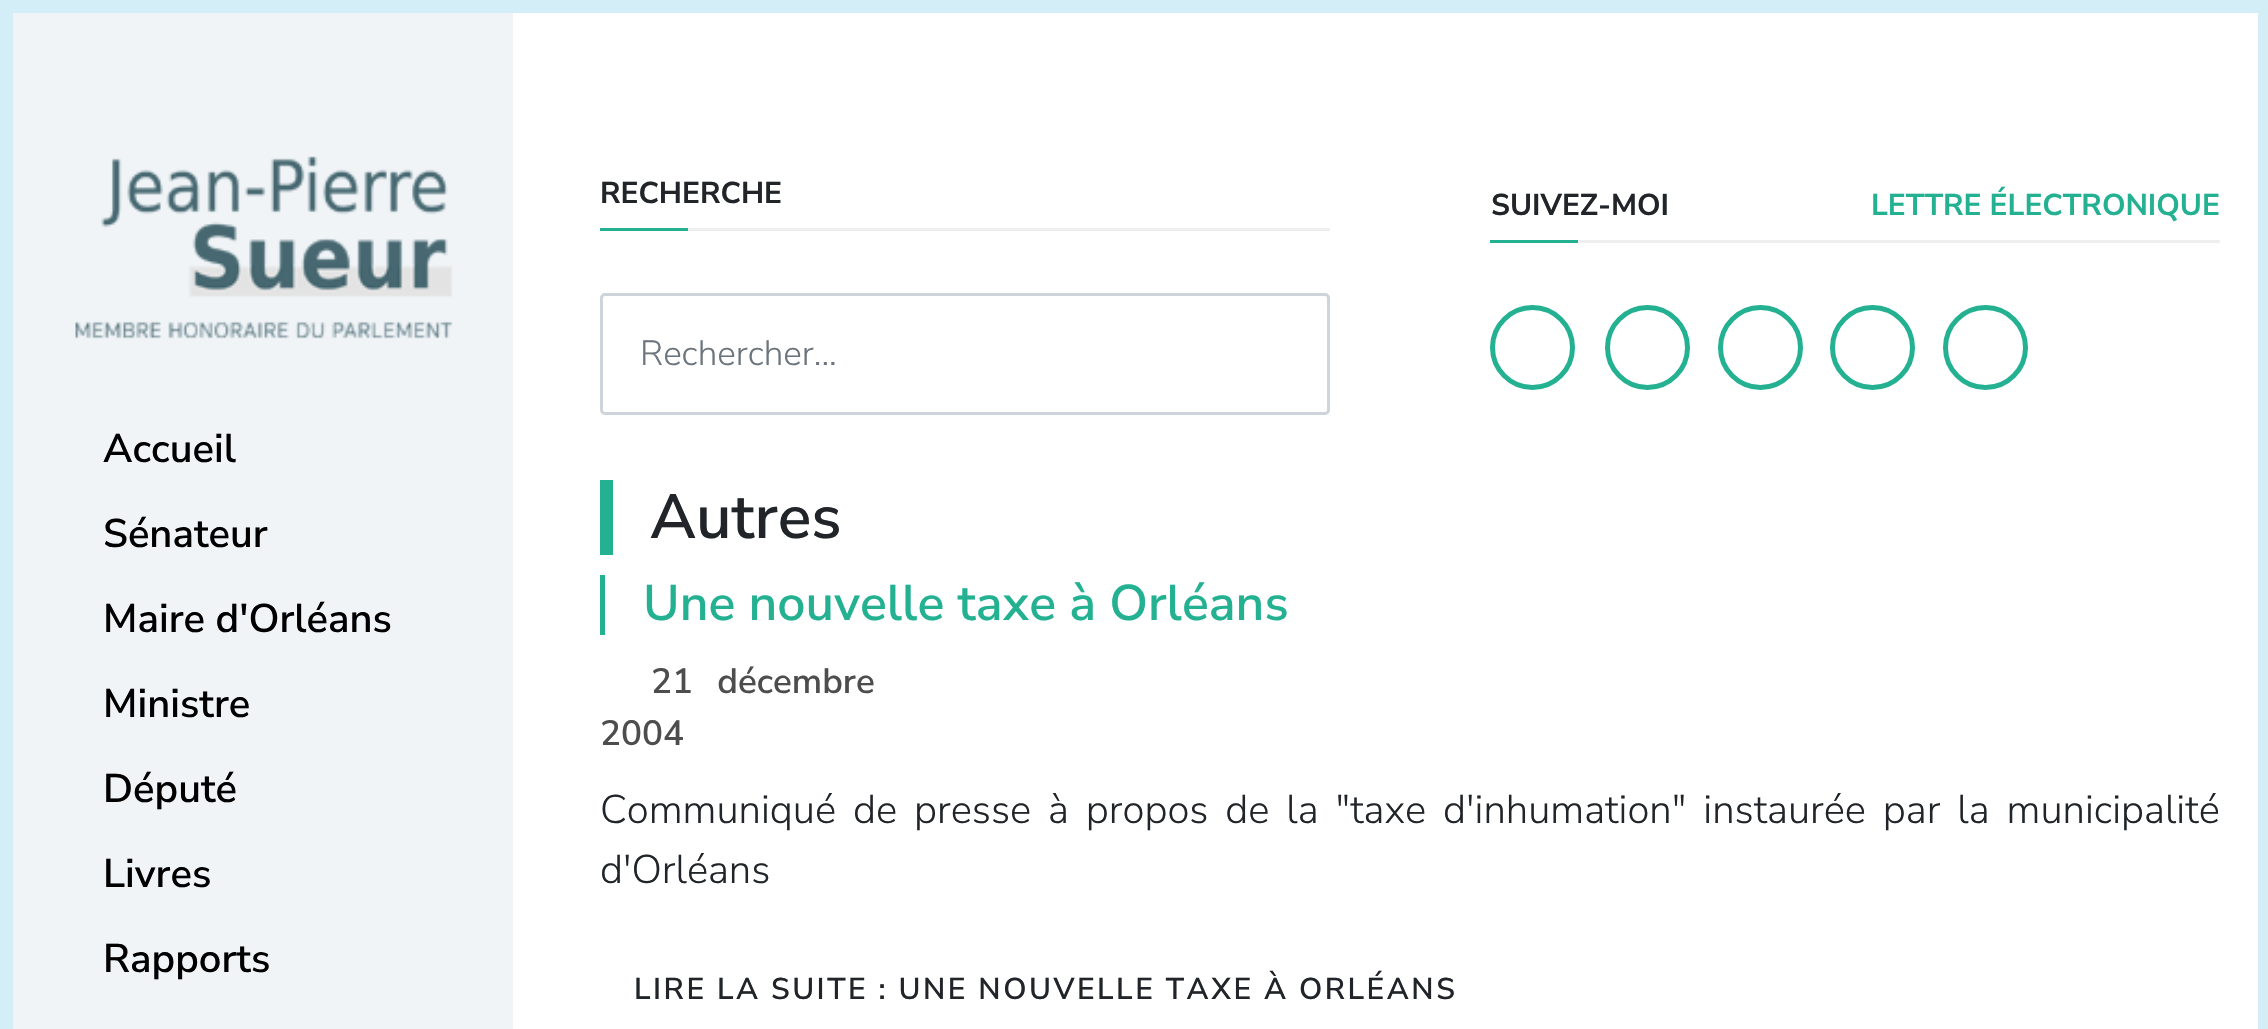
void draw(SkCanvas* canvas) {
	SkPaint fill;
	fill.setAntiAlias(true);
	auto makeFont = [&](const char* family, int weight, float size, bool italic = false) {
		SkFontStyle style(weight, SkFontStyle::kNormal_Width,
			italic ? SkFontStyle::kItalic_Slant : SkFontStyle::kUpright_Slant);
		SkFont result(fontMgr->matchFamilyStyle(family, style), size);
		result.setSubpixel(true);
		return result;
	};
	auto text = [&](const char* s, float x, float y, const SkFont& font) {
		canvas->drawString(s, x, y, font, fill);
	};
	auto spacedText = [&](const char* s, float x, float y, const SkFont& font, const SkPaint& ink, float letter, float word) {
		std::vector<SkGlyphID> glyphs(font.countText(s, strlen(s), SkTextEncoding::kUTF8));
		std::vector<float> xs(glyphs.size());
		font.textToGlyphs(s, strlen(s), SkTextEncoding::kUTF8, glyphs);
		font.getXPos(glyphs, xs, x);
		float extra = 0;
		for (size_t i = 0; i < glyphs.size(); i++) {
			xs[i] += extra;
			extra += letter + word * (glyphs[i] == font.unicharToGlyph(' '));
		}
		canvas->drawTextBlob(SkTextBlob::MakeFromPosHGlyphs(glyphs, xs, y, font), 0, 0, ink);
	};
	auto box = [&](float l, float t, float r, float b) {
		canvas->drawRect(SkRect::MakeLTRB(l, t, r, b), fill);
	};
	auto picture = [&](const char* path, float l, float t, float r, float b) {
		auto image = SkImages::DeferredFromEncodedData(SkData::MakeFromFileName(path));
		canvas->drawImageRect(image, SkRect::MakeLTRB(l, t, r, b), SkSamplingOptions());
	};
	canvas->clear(0xFFD4EEF7);
	fill.setColor(0xFFF0F4F7);
	box(13, 13, 513, 1029);
	picture("image0.png", 75, 156, 453, 339);
	fill.setColor(0xFFFFFFFF);
	box(513, 13, 2258, 1029);
	fill.setColor(0xFF23B192);
	box(600, 228, 688, 231);
	fill.setColor(0xFFEEEEEE);
	box(688, 228, 1330, 231);
	fill.setStyle(SkPaint::kStroke_Style);
	fill.setStrokeWidth(3);
	fill.setColor(0xFFCED4DA);
	canvas->drawRoundRect(SkRect::MakeLTRB(601.5f, 294.5f, 1328.5f, 413.5f), 3.5f, 3.5f, fill);
	fill.setStyle(SkPaint::kFill_Style);
	fill.setColor(0xFF23B192);
	box(1490, 240, 1578, 243);
	fill.setColor(0xFFEEEEEE);
	box(1578, 240, 2220, 243);
	fill.setStyle(SkPaint::kStroke_Style);
	fill.setStrokeWidth(5);
	fill.setColor(0xFF23B192);
	canvas->drawCircle(1532.5f, 347.5f, 40, fill);
	canvas->drawCircle(1647.5f, 347.5f, 40, fill);
	canvas->drawCircle(1760.5f, 347.5f, 40, fill);
	canvas->drawCircle(1872.5f, 347.5f, 40, fill);
	canvas->drawCircle(1985.5f, 347.5f, 40, fill);
	fill.setStyle(SkPaint::kFill_Style);
	box(600, 480, 613, 555);
	box(600, 575, 605, 635);
	auto font1 = makeFont("Nunito Sans", 600, 40);
	fill.setColor(0xFF000000);
	text("Accueil", 103, 462, font1);
	text("Sénateur", 103, 547, font1);
	text("Maire d'Orléans", 103, 632, font1);
	text("Ministre", 103, 717, font1);
	text("Député", 103, 802, font1);
	text("Livres", 103, 887, font1);
	text("Rapports", 103, 972, font1);
	auto font2 = makeFont("Nunito Sans", 700, 30);
	fill.setColor(0xFF212529);
	text("RECHERCHE", 600, 203, font2);
	auto font3 = makeFont("Nunito Sans", 300, 35);
	fill.setColor(0xFF6C757D);
	text("Rechercher...", 640, 365, font3);
	fill.setColor(0xFF212529);
	text("SUIVEZ-MOI", 1491, 215, font2);
	fill.setColor(0xFF23B192);
	text("LETTRE ÉLECTRONIQUE", 1871, 215, font2);
	auto font4 = makeFont("Nunito Sans", 600, 62.5f);
	fill.setColor(0xFF212529);
	text("Autres", 650, 538, font4);
	auto font5 = makeFont("Nunito Sans", 600, 50);
	fill.setColor(0xFF23B192);
	text("Une nouvelle taxe à Orléans", 643, 620, font5);
	auto font6 = makeFont("Nunito Sans", 600, 35);
	fill.setColor(0xFF4D4D4D);
	spacedText("21 décembre", 651, 693, font6, fill, 0, 15);
	text("2004", 600, 745, font6);
	auto font7 = makeFont("Nunito Sans", 300, 40);
	fill.setColor(0xFF212529);
	spacedText("Communiqué de presse à propos de la \"taxe d'inhumation\" instaurée par la municipalité", 600, 823, font7, fill, 0, 6.9f);
	text("d'Orléans", 600, 883, font7);
	auto font8 = makeFont("Nunito Sans", 600, 30);
	spacedText("LIRE LA SUITE : UNE NOUVELLE TAXE À ORLÉANS", 634, 999, font8, fill, 2.5f, 0);
}
